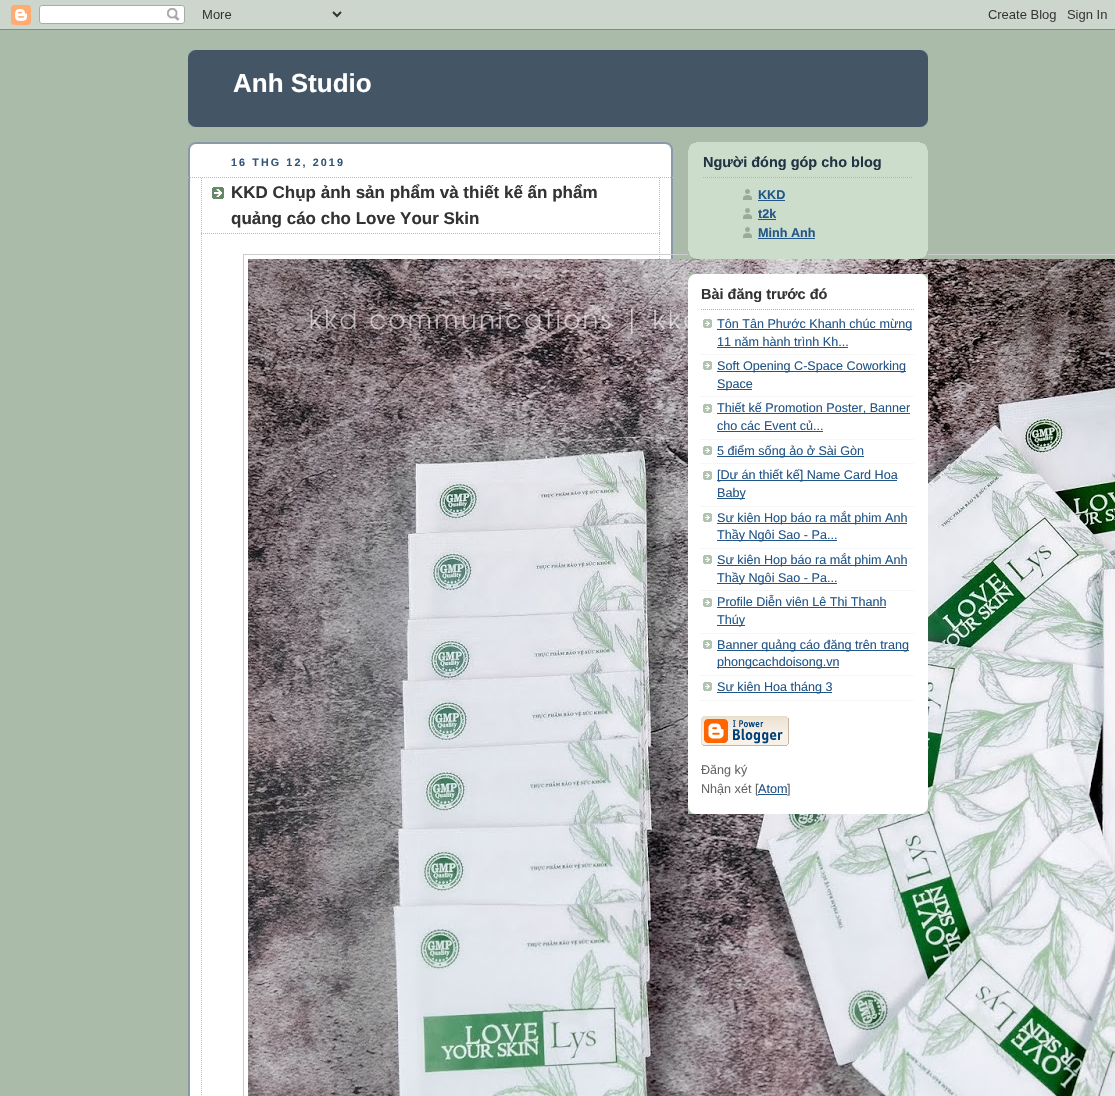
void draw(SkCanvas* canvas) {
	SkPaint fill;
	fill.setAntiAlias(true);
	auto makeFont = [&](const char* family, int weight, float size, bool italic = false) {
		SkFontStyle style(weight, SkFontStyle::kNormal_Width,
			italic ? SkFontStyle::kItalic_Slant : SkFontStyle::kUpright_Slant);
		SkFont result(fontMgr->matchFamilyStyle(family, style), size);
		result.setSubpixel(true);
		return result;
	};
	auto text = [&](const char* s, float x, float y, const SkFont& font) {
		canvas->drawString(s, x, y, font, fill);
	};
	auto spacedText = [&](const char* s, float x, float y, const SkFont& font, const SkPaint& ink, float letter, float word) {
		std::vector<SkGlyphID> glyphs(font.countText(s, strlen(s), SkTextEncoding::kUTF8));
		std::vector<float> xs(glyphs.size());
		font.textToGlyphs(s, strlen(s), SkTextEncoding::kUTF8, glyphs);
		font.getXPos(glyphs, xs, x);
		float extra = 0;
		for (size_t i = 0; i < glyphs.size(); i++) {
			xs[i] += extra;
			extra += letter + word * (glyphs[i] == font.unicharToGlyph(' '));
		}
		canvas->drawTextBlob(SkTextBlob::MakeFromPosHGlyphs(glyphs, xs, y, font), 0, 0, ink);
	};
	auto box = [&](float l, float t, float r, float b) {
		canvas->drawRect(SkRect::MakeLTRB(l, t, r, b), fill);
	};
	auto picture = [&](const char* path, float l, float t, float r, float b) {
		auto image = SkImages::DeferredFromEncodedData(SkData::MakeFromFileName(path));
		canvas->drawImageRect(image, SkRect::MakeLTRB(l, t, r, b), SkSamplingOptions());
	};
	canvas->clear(0xFFAABBAA);
	picture("image0.png", 0, 0, 1115, 30);
	fill.setColor(0xFF445566);
	box(188, 50, 928, 127);
	picture("image1.png", 188, 50, 928, 58);
	picture("image2.png", 188, 119, 928, 127);
	fill.setColor(0xFFFFFFFF);
	box(190, 144, 671, 1096);
	picture("image3.png", 188, 142, 673, 192);
	picture("image4.png", 188, 192, 673, 1096);
	fill.setStyle(SkPaint::kStroke_Style);
	fill.setStrokeWidth(1);
	fill.setColor(0xFFBBBBBB);
	fill.setPathEffect(SkDashPathEffect::Make({{1, 1}}, 0));
	canvas->drawPath(SkPathBuilder().moveTo(188, 177.5f).lineTo(673, 177.5f).detach(), fill);
	fill.setPathEffect(nullptr);
	picture("image5.png", 212, 187, 224, 199);
	fill.setPathEffect(SkDashPathEffect::Make({{1, 1}}, 0));
	canvas->drawPath(SkPathBuilder().moveTo(659.5f, 178).lineTo(659.5f, 234).detach(), fill);
	fill.setPathEffect(nullptr);
	fill.setPathEffect(SkDashPathEffect::Make({{1, 1}}, 0));
	canvas->drawPath(SkPathBuilder().moveTo(201, 233.5f).lineTo(660, 233.5f).detach(), fill);
	fill.setPathEffect(nullptr);
	fill.setPathEffect(SkDashPathEffect::Make({{1, 1}}, 0));
	canvas->drawPath(SkPathBuilder().moveTo(201.5f, 178).lineTo(201.5f, 234).detach(), fill);
	fill.setPathEffect(nullptr);
	fill.setPathEffect(SkDashPathEffect::Make({{1, 1}}, 0));
	canvas->drawPath(SkPathBuilder().moveTo(659.5f, 234).lineTo(659.5f, 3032).detach(), fill);
	fill.setPathEffect(nullptr);
	fill.setPathEffect(SkDashPathEffect::Make({{1, 1}}, 0));
	canvas->drawPath(SkPathBuilder().moveTo(201.5f, 234).lineTo(201.5f, 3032).detach(), fill);
	fill.setPathEffect(nullptr);
	fill.setColor(0xFFCCCCCC);
	canvas->drawRect(SkRect::MakeLTRB(243.5f, 254.5f, 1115.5f, 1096.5f), fill);
	picture("image6.png", 248, 259, 1115, 1096);
	fill.setStyle(SkPaint::kFill_Style);
	fill.setColor(0xFFCCDDCC);
	box(688, 142, 928, 259);
	picture("image7.png", 688, 251, 928, 259);
	picture("image8.png", 688, 142, 928, 150);
	fill.setStyle(SkPaint::kStroke_Style);
	fill.setColor(0xFFAABBAA);
	fill.setPathEffect(SkDashPathEffect::Make({{1, 1}}, 0));
	canvas->drawPath(SkPathBuilder().moveTo(703, 177.5f).lineTo(913, 177.5f).detach(), fill);
	fill.setPathEffect(nullptr);
	picture("image9.png", 743, 189, 752, 200);
	fill.setStyle(SkPaint::kFill_Style);
	fill.setColor(0xFF225588);
	box(758, 200, 785, 201);
	picture("image9.png", 743, 208, 752, 219);
	box(758, 219, 776, 220);
	picture("image9.png", 743, 227, 752, 238);
	box(758, 238, 815, 239);
	fill.setColor(0xFFFFFFFF);
	box(688, 274, 928, 814);
	picture("image10.png", 688, 274, 928, 282);
	picture("image11.png", 688, 806, 928, 814);
	fill.setStyle(SkPaint::kStroke_Style);
	fill.setColor(0xFF99BB99);
	fill.setPathEffect(SkDashPathEffect::Make({{1, 1}}, 0));
	canvas->drawPath(SkPathBuilder().moveTo(701, 309.5f).lineTo(915, 309.5f).detach(), fill);
	fill.setPathEffect(nullptr);
	picture("image12.png", 703, 319, 712, 328);
	fill.setColor(0xFFEEEEEE);
	fill.setPathEffect(SkDashPathEffect::Make({{1, 1}}, 0));
	canvas->drawPath(SkPathBuilder().moveTo(701, 354.5f).lineTo(915, 354.5f).detach(), fill);
	fill.setPathEffect(nullptr);
	fill.setStyle(SkPaint::kFill_Style);
	fill.setColor(0xFF225588);
	box(717, 329, 912, 330);
	box(717, 347, 848, 348);
	picture("image12.png", 703, 361, 712, 370);
	fill.setStyle(SkPaint::kStroke_Style);
	fill.setColor(0xFFEEEEEE);
	fill.setPathEffect(SkDashPathEffect::Make({{1, 1}}, 0));
	canvas->drawPath(SkPathBuilder().moveTo(701, 396.5f).lineTo(915, 396.5f).detach(), fill);
	fill.setPathEffect(nullptr);
	fill.setStyle(SkPaint::kFill_Style);
	fill.setColor(0xFF225588);
	box(717, 371, 906, 372);
	box(717, 389, 752, 390);
	picture("image12.png", 703, 404, 712, 413);
	fill.setStyle(SkPaint::kStroke_Style);
	fill.setColor(0xFFEEEEEE);
	fill.setPathEffect(SkDashPathEffect::Make({{1, 1}}, 0));
	canvas->drawPath(SkPathBuilder().moveTo(701, 439.5f).lineTo(915, 439.5f).detach(), fill);
	fill.setPathEffect(nullptr);
	fill.setStyle(SkPaint::kFill_Style);
	fill.setColor(0xFF225588);
	box(717, 413, 910, 414);
	box(717, 431, 823, 432);
	picture("image12.png", 703, 446, 712, 455);
	fill.setStyle(SkPaint::kStroke_Style);
	fill.setColor(0xFFEEEEEE);
	fill.setPathEffect(SkDashPathEffect::Make({{1, 1}}, 0));
	canvas->drawPath(SkPathBuilder().moveTo(701, 463.5f).lineTo(915, 463.5f).detach(), fill);
	fill.setPathEffect(nullptr);
	fill.setStyle(SkPaint::kFill_Style);
	fill.setColor(0xFF225588);
	box(717, 456, 864, 457);
	picture("image12.png", 703, 471, 712, 480);
	fill.setStyle(SkPaint::kStroke_Style);
	fill.setColor(0xFFEEEEEE);
	fill.setPathEffect(SkDashPathEffect::Make({{1, 1}}, 0));
	canvas->drawPath(SkPathBuilder().moveTo(701, 506.5f).lineTo(915, 506.5f).detach(), fill);
	fill.setPathEffect(nullptr);
	fill.setStyle(SkPaint::kFill_Style);
	fill.setColor(0xFF225588);
	box(717, 480, 897, 481);
	box(717, 498, 745, 499);
	picture("image12.png", 703, 513, 712, 522);
	fill.setStyle(SkPaint::kStroke_Style);
	fill.setColor(0xFFEEEEEE);
	fill.setPathEffect(SkDashPathEffect::Make({{1, 1}}, 0));
	canvas->drawPath(SkPathBuilder().moveTo(701, 548.5f).lineTo(915, 548.5f).detach(), fill);
	fill.setPathEffect(nullptr);
	fill.setStyle(SkPaint::kFill_Style);
	fill.setColor(0xFF225588);
	box(717, 523, 907, 524);
	box(717, 540, 837, 541);
	picture("image12.png", 703, 555, 712, 564);
	fill.setStyle(SkPaint::kStroke_Style);
	fill.setColor(0xFFEEEEEE);
	fill.setPathEffect(SkDashPathEffect::Make({{1, 1}}, 0));
	canvas->drawPath(SkPathBuilder().moveTo(701, 590.5f).lineTo(915, 590.5f).detach(), fill);
	fill.setPathEffect(nullptr);
	fill.setStyle(SkPaint::kFill_Style);
	fill.setColor(0xFF225588);
	box(717, 565, 907, 566);
	box(717, 583, 837, 584);
	picture("image12.png", 703, 598, 712, 607);
	fill.setStyle(SkPaint::kStroke_Style);
	fill.setColor(0xFFEEEEEE);
	fill.setPathEffect(SkDashPathEffect::Make({{1, 1}}, 0));
	canvas->drawPath(SkPathBuilder().moveTo(701, 633.5f).lineTo(915, 633.5f).detach(), fill);
	fill.setPathEffect(nullptr);
	fill.setStyle(SkPaint::kFill_Style);
	fill.setColor(0xFF225588);
	box(717, 607, 886, 608);
	box(717, 625, 745, 626);
	picture("image12.png", 703, 640, 712, 649);
	fill.setStyle(SkPaint::kStroke_Style);
	fill.setColor(0xFFEEEEEE);
	fill.setPathEffect(SkDashPathEffect::Make({{1, 1}}, 0));
	canvas->drawPath(SkPathBuilder().moveTo(701, 675.5f).lineTo(915, 675.5f).detach(), fill);
	fill.setPathEffect(nullptr);
	fill.setStyle(SkPaint::kFill_Style);
	fill.setColor(0xFF225588);
	box(717, 650, 909, 651);
	box(717, 667, 839, 668);
	picture("image12.png", 703, 682, 712, 691);
	fill.setStyle(SkPaint::kStroke_Style);
	fill.setColor(0xFFEEEEEE);
	fill.setPathEffect(SkDashPathEffect::Make({{1, 1}}, 0));
	canvas->drawPath(SkPathBuilder().moveTo(701, 700.5f).lineTo(915, 700.5f).detach(), fill);
	fill.setPathEffect(nullptr);
	fill.setStyle(SkPaint::kFill_Style);
	fill.setColor(0xFF225588);
	box(717, 692, 832, 693);
	picture("image13.png", 701, 716, 789, 746);
	box(758, 794, 787, 795);
	auto font1 = makeFont("Liberation Sans", 700, 26);
	fill.setColor(0xFFFFFFFF);
	text("Anh Studio", 233, 92, font1);
	auto font2 = makeFont("Liberation Sans", 700, 10.75f);
	fill.setColor(0xFF335577);
	spacedText("16 THG 12, 2019", 231, 166, font2, fill, 2.1f, 0);
	auto font3 = makeFont("Liberation Sans", 700, 17);
	fill.setColor(0xFF333333);
	text("KKD Chụp ảnh sản phẩm và thiết kế ấn phẩm", 231, 198, font3);
	text("quảng cáo cho Love Your Skin", 231, 224, font3);
	auto font4 = makeFont("Liberation Sans", 700, 14.5f);
	fill.setColor(0xFF223344);
	text("Người đóng góp cho blog", 703, 167, font4);
	auto font5 = makeFont("Liberation Sans", 700, 12.6f);
	fill.setColor(0xFF225588);
	text("KKD", 758, 199, font5);
	text("t2k", 758, 218, font5);
	text("Minh Anh", 758, 237, font5);
	fill.setColor(0xFF333333);
	text("Bài đăng trước đó", 701, 299, font4);
	auto font6 = makeFont("Liberation Sans", 400, 12.6f);
	fill.setColor(0xFF225588);
	text("Tôn Tân Phước Khanh chúc mừng", 717, 328, font6);
	text("11 năm hành trình Kh...", 717, 346, font6);
	text("Soft Opening C-Space Coworking", 717, 370, font6);
	text("Space", 717, 388, font6);
	text("Thiết kế Promotion Poster, Banner", 717, 412, font6);
	text("cho các Event củ...", 717, 430, font6);
	text("5 điểm sống ảo ở Sài Gòn", 717, 455, font6);
	text("[Dự án thiết kế] Name Card Hoa", 717, 479, font6);
	text("Baby", 717, 497, font6);
	text("Sự kiện Họp báo ra mắt phim Anh", 717, 522, font6);
	text("Thầy Ngôi Sao - Pa...", 717, 539, font6);
	text("Sự kiện Họp báo ra mắt phim Anh", 717, 564, font6);
	text("Thầy Ngôi Sao - Pa...", 717, 582, font6);
	text("Profile Diễn viên Lê Thị Thanh", 717, 606, font6);
	text("Thúy", 717, 624, font6);
	text("Banner quảng cáo đăng trên trang", 717, 649, font6);
	text("phongcachdoisong.vn", 717, 666, font6);
	text("Sự kiện Hoa tháng 3", 717, 691, font6);
	fill.setColor(0xFF666666);
	text("Đăng ký", 701, 774, font6);
	text("Nhận xét [", 701, 793, font6);
	fill.setColor(0xFF225588);
	text("Atom", 758, 793, font6);
	fill.setColor(0xFF666666);
	text("]", 787, 793, font6);
}
